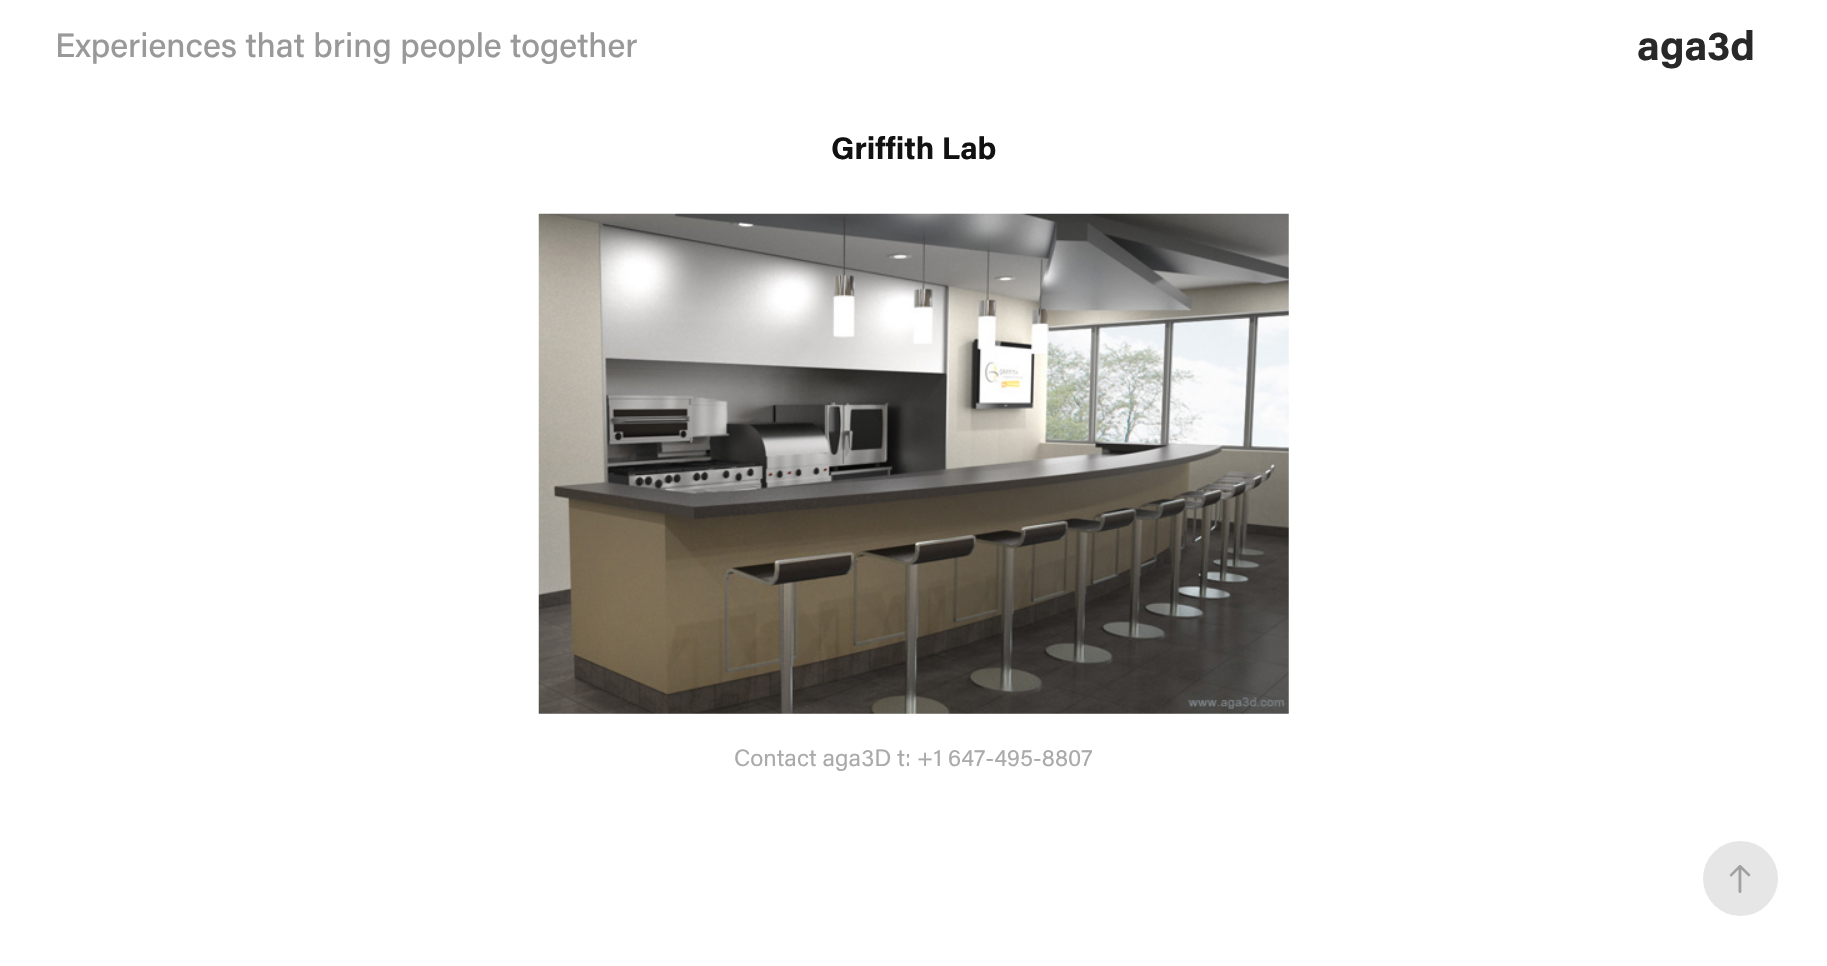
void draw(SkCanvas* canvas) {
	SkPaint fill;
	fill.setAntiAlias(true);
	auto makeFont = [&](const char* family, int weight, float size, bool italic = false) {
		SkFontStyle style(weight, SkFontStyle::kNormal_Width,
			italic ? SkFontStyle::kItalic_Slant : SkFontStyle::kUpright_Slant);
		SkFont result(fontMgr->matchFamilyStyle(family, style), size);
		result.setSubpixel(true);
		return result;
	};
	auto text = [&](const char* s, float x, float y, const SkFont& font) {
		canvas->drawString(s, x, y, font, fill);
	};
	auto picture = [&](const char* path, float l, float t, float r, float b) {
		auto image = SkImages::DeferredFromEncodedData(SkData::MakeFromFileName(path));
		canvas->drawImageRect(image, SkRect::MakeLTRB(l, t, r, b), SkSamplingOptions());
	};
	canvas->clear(0xFFFFFFFF);
	picture("image0.png", 538, 213, 1289, 714);
	fill.setColor(0xFFE6E6E6);
	canvas->drawCircle(1740.5f, 878.5f, 37.5f, fill);
	picture("image1.png", 1729, 865, 1751, 893);
	auto font1 = makeFont("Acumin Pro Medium", 500, 33.75f);
	fill.setColor(0xFF999999);
	text("Experiences that bring people together", 55, 57, font1);
	auto font2 = makeFont("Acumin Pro", 700, 41);
	fill.setColor(0xFF282828);
	text("aga3d", 1637, 60, font2);
	auto font3 = makeFont("Acumin Pro", 700, 31.25f);
	fill.setColor(0xFF111111);
	text("Griffith Lab", 831, 159, font3);
	auto font4 = makeFont("Acumin Pro", 400, 23.75f);
	fill.setColor(0xFFAAAAAA);
	text("Contact aga3D t: +1 647-495-8807", 734, 766, font4);
}
